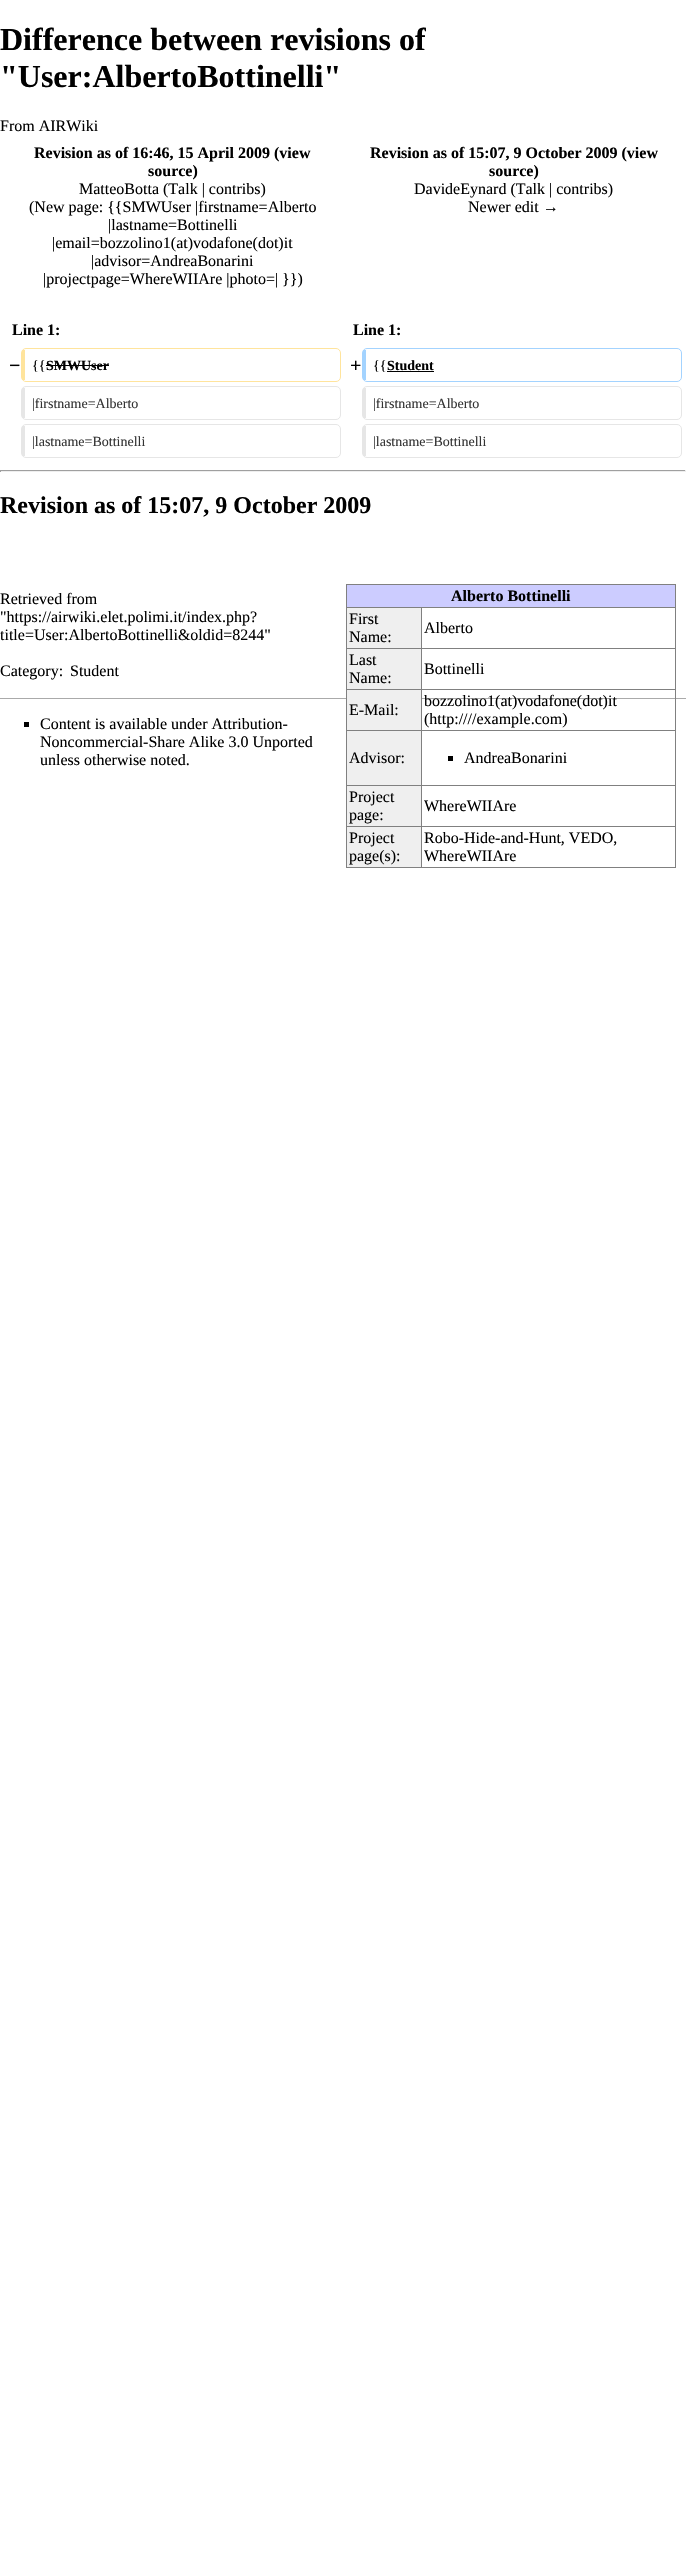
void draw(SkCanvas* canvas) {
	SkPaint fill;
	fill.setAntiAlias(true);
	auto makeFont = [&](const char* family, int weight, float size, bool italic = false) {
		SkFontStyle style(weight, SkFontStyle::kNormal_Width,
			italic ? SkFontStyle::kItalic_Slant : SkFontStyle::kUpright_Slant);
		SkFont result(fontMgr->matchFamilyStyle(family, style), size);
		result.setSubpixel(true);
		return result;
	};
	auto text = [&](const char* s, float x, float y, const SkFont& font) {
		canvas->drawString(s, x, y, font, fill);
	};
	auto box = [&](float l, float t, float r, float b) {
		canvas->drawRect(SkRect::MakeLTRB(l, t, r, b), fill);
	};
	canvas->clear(0xFFFFFFFF);
	fill.setStyle(SkPaint::kStroke_Style);
	fill.setStrokeWidth(1);
	fill.setColor(0xFFFFE49C);
	canvas->drawRoundRect(SkRect::MakeLTRB(21.5f, 348.5f, 340.5f, 381.5f), 4.5f, 4.5f, fill);
	fill.setStyle(SkPaint::kFill_Style);
	box(22, 350, 25, 380);
	fill.setColor(0xFF000000);
	box(46, 365, 109, 366);
	fill.setStyle(SkPaint::kStroke_Style);
	fill.setColor(0xFFA3D3FF);
	canvas->drawRoundRect(SkRect::MakeLTRB(362.5f, 348.5f, 681.5f, 381.5f), 4.5f, 4.5f, fill);
	fill.setStyle(SkPaint::kFill_Style);
	box(363, 350, 366, 380);
	fill.setColor(0xFF000000);
	box(387, 371, 434, 372);
	fill.setStyle(SkPaint::kStroke_Style);
	fill.setColor(0xFFE6E6E6);
	canvas->drawRoundRect(SkRect::MakeLTRB(21.5f, 386.5f, 340.5f, 419.5f), 4.5f, 4.5f, fill);
	fill.setStyle(SkPaint::kFill_Style);
	box(22, 388, 25, 418);
	fill.setStyle(SkPaint::kStroke_Style);
	canvas->drawRoundRect(SkRect::MakeLTRB(362.5f, 386.5f, 681.5f, 419.5f), 4.5f, 4.5f, fill);
	fill.setStyle(SkPaint::kFill_Style);
	box(363, 388, 366, 418);
	fill.setStyle(SkPaint::kStroke_Style);
	canvas->drawRoundRect(SkRect::MakeLTRB(21.5f, 424.5f, 340.5f, 457.5f), 4.5f, 4.5f, fill);
	fill.setStyle(SkPaint::kFill_Style);
	box(22, 426, 25, 456);
	fill.setStyle(SkPaint::kStroke_Style);
	canvas->drawRoundRect(SkRect::MakeLTRB(362.5f, 424.5f, 681.5f, 457.5f), 4.5f, 4.5f, fill);
	fill.setStyle(SkPaint::kFill_Style);
	box(363, 426, 366, 456);
	fill.setColor(0xFF9F9F9F);
	box(0, 470, 686, 471);
	fill.setColor(0xFFEEEEEE);
	box(685, 470, 686, 472);
	box(0, 471, 686, 472);
	fill.setColor(0xFF9F9F9F);
	box(0, 470, 1, 472);
	fill.setColor(0xFFCCCCFF);
	canvas->drawRect(SkRect::MakeLTRB(346.5f, 584.5f, 675.5f, 607.5f), fill);
	fill.setStyle(SkPaint::kStroke_Style);
	fill.setColor(0xFF808080);
	canvas->drawRect(SkRect::MakeLTRB(346.5f, 584.5f, 675.5f, 607.5f), fill);
	fill.setStyle(SkPaint::kFill_Style);
	fill.setColor(0xFFEFEFEF);
	box(347, 608, 421, 648);
	fill.setColor(0xFF808080);
	box(346, 648, 421, 649);
	box(346, 608, 347, 649);
	fill.setColor(0xFFAAAAAA);
	box(0, 698, 686, 699);
	fill.setColor(0xFF808080);
	box(675, 608, 676, 868);
	box(421, 648, 676, 649);
	box(421, 608, 422, 649);
	fill.setColor(0xFFEFEFEF);
	box(347, 649, 421, 689);
	fill.setColor(0xFF808080);
	box(346, 689, 676, 690);
	box(346, 649, 347, 690);
	box(421, 649, 422, 690);
	fill.setColor(0xFFEFEFEF);
	box(347, 690, 421, 730);
	fill.setColor(0xFF808080);
	box(346, 730, 676, 731);
	box(346, 690, 347, 731);
	box(421, 690, 422, 731);
	fill.setColor(0xFFEFEFEF);
	box(347, 731, 421, 785);
	fill.setColor(0xFF808080);
	box(346, 785, 676, 786);
	box(346, 731, 347, 786);
	box(421, 731, 422, 786);
	fill.setColor(0xFF000000);
	box(448, 756, 453, 761);
	fill.setColor(0xFFEFEFEF);
	box(347, 786, 421, 826);
	fill.setColor(0xFF808080);
	box(346, 826, 676, 827);
	box(346, 786, 347, 827);
	box(421, 786, 422, 827);
	fill.setColor(0xFFEFEFEF);
	box(347, 827, 421, 867);
	fill.setColor(0xFF808080);
	box(346, 867, 676, 868);
	box(346, 827, 347, 868);
	box(421, 827, 422, 868);
	fill.setColor(0xFF000000);
	box(24, 722, 29, 727);
	auto font1 = makeFont("Liberation Serif", 700, 32);
	text("Difference between revisions of", 0, 50, font1);
	text("\"User:AlbertoBottinelli\"", 0, 87, font1);
	auto font2 = makeFont("Liberation Serif", 400, 16);
	text("From AIRWiki", 0, 131, font2);
	auto font3 = makeFont("Liberation Serif", 700, 16);
	text("Revision as of 16:46, 15 April 2009 (view", 34, 158, font3);
	text("source)", 148, 176, font3);
	text("MatteoBotta (Talk | contribs)", 79, 194, font2);
	text("(New page: {{SMWUser |firstname=Alberto", 29, 212, font2);
	text("|lastname=Bottinelli", 108, 230, font2);
	text("|email=bozzolino1(at)vodafone(dot)it", 52, 248, font2);
	text("|advisor=AndreaBonarini", 91, 266, font2);
	text("|projectpage=WhereWIIAre |photo=| }})", 43, 284, font2);
	text("Revision as of 15:07, 9 October 2009 (view", 370, 158, font3);
	text("source)", 489, 176, font3);
	text("DavideEynard (Talk | contribs)", 414, 194, font2);
	text("Newer edit →", 468, 212, font2);
	text("Line 1:", 12, 335, font3);
	text("Line 1:", 353, 335, font3);
	auto font4 = makeFont("Liberation Serif", 700, 20);
	text("−", 9, 372, font4);
	auto font5 = makeFont("Liberation Serif", 400, 14);
	text("{{", 32, 370, font5);
	auto font6 = makeFont("Liberation Serif", 700, 14);
	text("SMWUser", 46, 370, font6);
	text("+", 350, 372, font4);
	text("{{", 373, 370, font5);
	text("Student", 387, 370, font6);
	fill.setColor(0xFF333333);
	text("|firstname=Alberto", 32, 408, font5);
	text("|firstname=Alberto", 373, 408, font5);
	text("|lastname=Bottinelli", 32, 446, font5);
	text("|lastname=Bottinelli", 373, 446, font5);
	auto font7 = makeFont("Liberation Serif", 700, 24);
	fill.setColor(0xFF000000);
	text("Revision as of 15:07, 9 October 2009", 0, 513, font7);
	text("Alberto Bottinelli", 451, 601, font3);
	text("First", 349, 624, font2);
	text("Name:", 349, 642, font2);
	text("Alberto", 424, 633, font2);
	text("Last", 349, 665, font2);
	text("Name:", 349, 683, font2);
	text("Bottinelli", 424, 674, font2);
	text("E-Mail:", 349, 715, font2);
	text("bozzolino1(at)vodafone(dot)it", 424, 706, font2);
	text("(http:////example.com)", 424, 724, font2);
	text("Advisor:", 349, 763, font2);
	text("AndreaBonarini", 464, 763, font2);
	text("Project", 349, 802, font2);
	text("page:", 349, 820, font2);
	text("WhereWIIAre", 424, 811, font2);
	text("Project", 349, 843, font2);
	text("page(s):", 349, 861, font2);
	text("Robo-Hide-and-Hunt, VEDO,", 424, 843, font2);
	text("WhereWIIAre", 424, 861, font2);
	text("Retrieved from", 0, 604, font2);
	text("\"https://airwiki.elet.polimi.it/index.php?", 0, 622, font2);
	text("title=User:AlbertoBottinelli&oldid=8244\"", 0, 640, font2);
	text("Category:", 0, 676, font2);
	text("Student", 70, 676, font2);
	text("Content is available under Attribution-", 40, 729, font2);
	text("Noncommercial-Share Alike 3.0 Unported", 40, 747, font2);
	text("unless otherwise noted.", 40, 765, font2);
}
